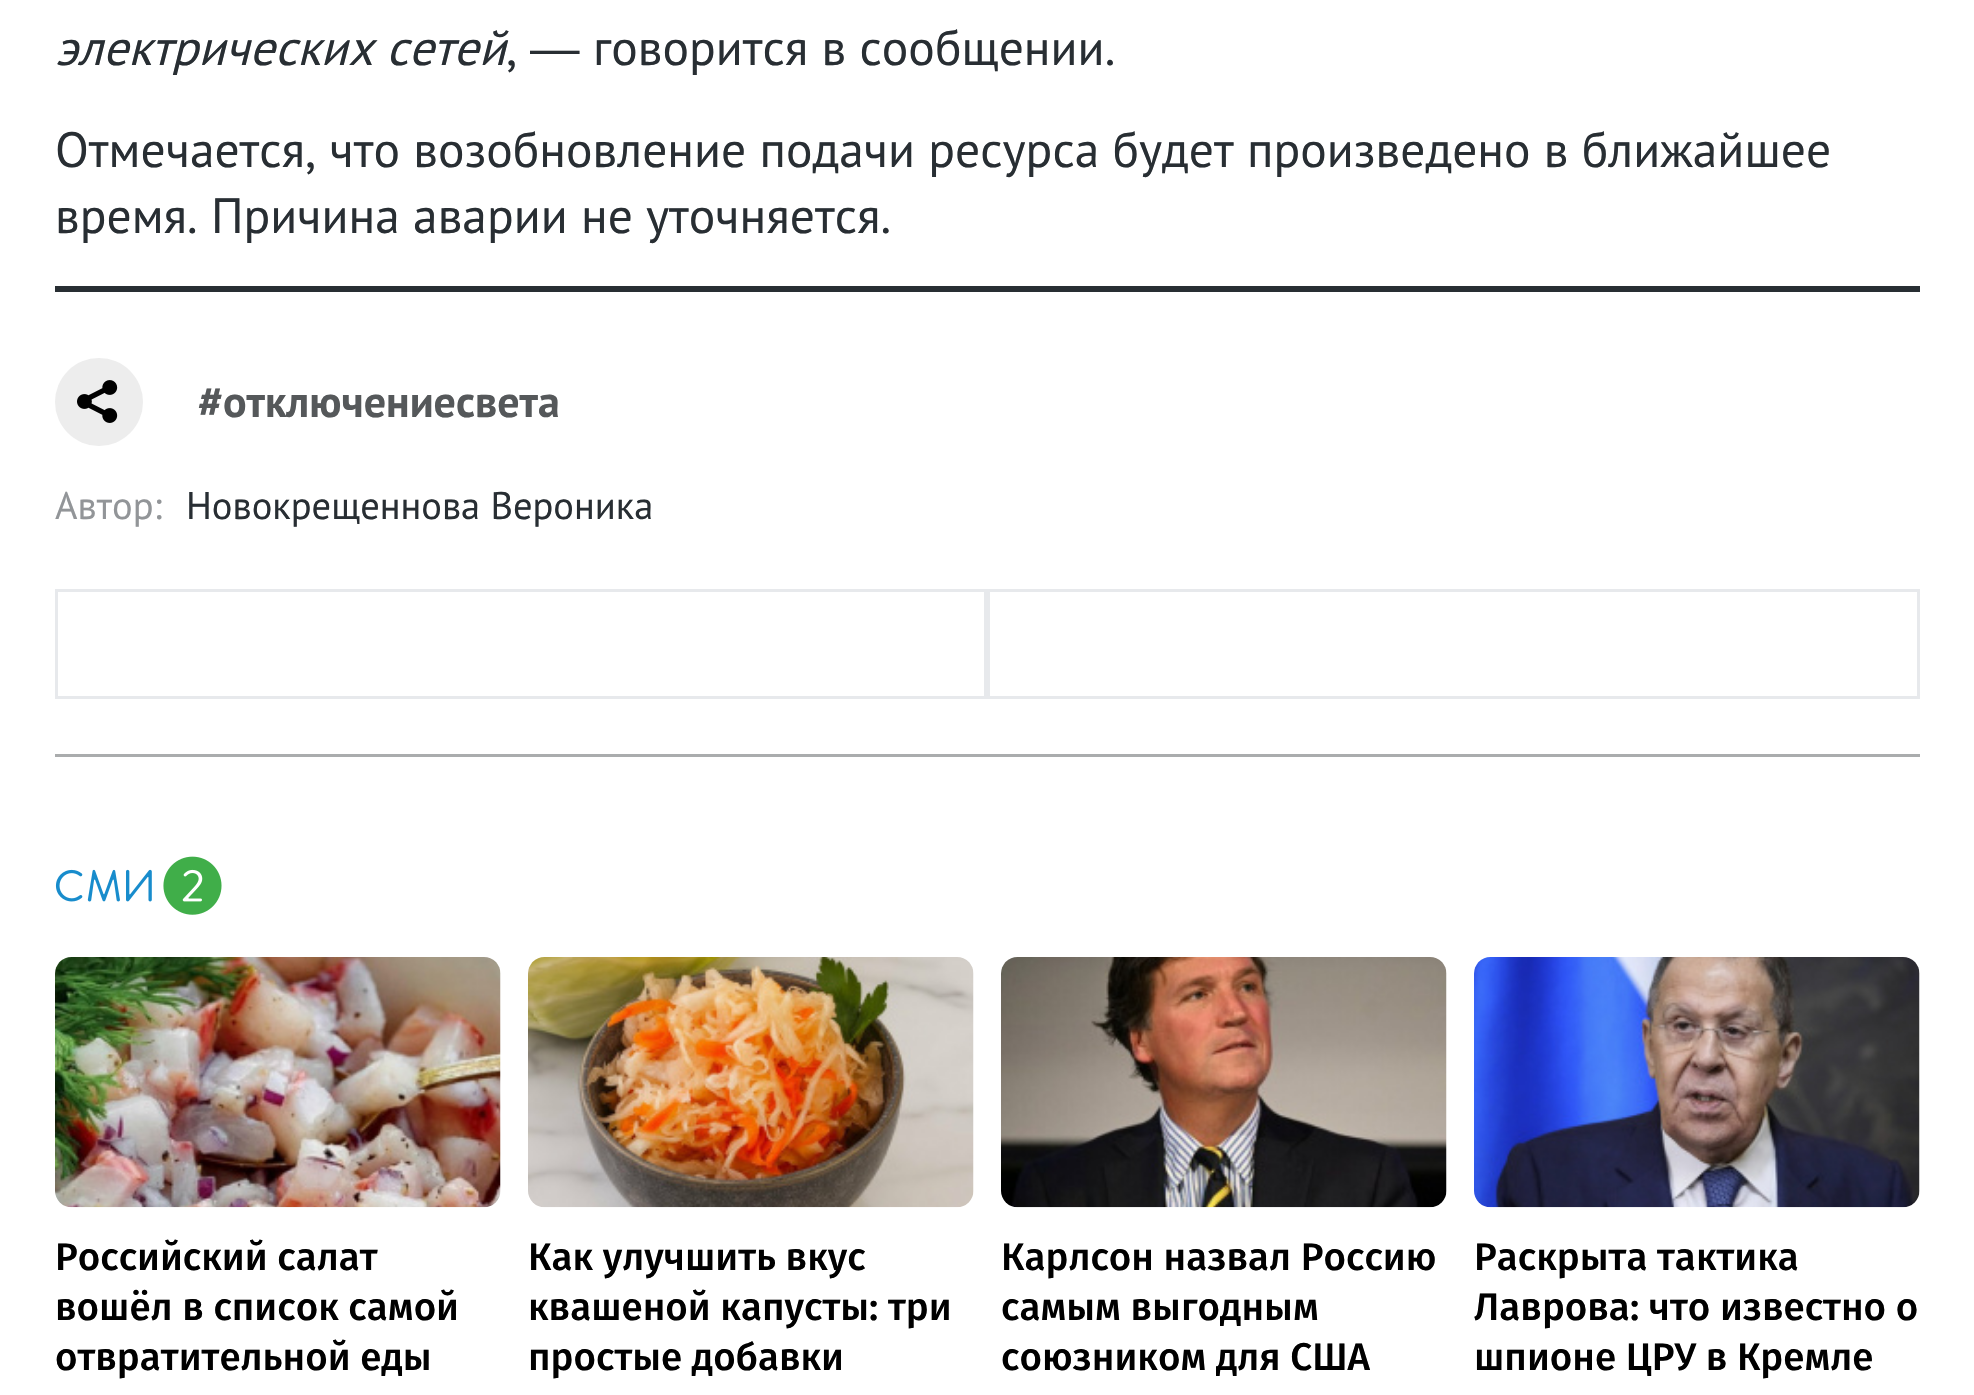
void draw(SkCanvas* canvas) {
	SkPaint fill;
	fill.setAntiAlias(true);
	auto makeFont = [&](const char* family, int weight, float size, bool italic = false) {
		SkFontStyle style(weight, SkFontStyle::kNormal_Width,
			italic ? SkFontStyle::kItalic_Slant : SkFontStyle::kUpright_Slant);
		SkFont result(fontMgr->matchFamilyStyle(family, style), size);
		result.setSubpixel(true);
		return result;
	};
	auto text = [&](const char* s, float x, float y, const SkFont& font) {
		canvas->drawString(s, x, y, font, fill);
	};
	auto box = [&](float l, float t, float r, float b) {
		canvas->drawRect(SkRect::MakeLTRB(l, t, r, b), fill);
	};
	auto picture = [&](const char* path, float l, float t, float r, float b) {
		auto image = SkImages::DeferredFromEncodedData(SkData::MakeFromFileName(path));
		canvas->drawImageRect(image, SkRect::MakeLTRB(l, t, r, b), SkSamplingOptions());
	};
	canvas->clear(0xFFFFFFFF);
	fill.setColor(0xFF282E33);
	box(55, 286, 1920, 292);
	fill.setColor(0xFFAAACAD);
	box(55, 754, 1920, 757);
	fill.setColor(0xFFEDEDED);
	canvas->drawCircle(99, 402, 44, fill);
	picture("image0.png", 77, 380, 118, 423);
	fill.setStyle(SkPaint::kStroke_Style);
	fill.setStrokeWidth(3);
	fill.setColor(0xFFE7E9EC);
	canvas->drawRect(SkRect::MakeLTRB(56.5f, 590.5f, 985.5f, 697.5f), fill);
	canvas->drawRect(SkRect::MakeLTRB(988.5f, 590.5f, 1918.5f, 697.5f), fill);
	picture("image1.png", 55, 856, 222, 915);
	picture("image2.png", 55, 957, 501, 1208);
	picture("image3.png", 528, 957, 974, 1208);
	picture("image4.png", 1001, 957, 1447, 1208);
	picture("image5.png", 1474, 957, 1920, 1208);
	auto font1 = makeFont("PT Sans", 400, 49.5f, true);
	fill.setStyle(SkPaint::kFill_Style);
	fill.setColor(0xFF282E33);
	text("электрических сетей", 55, 65, font1);
	auto font2 = makeFont("Liberation Sans", 400, 49.5f);
	text("—", 530, 65, font2);
	auto font3 = makeFont("PT Sans", 400, 49.5f);
	text("говорится в сообщении.", 593, 65, font3);
	text(",", 506, 65, font3);
	text("Отмечается, что возобновление подачи ресурса будет произведено в ближайшее", 55, 167, font3);
	text("время. Причина аварии не уточняется.", 55, 233, font3);
	auto font4 = makeFont("PT Sans", 700, 44);
	fill.setColor(0xFF55585A);
	text("#отключениесвета", 198, 417, font4);
	auto font5 = makeFont("PT Sans", 400, 38.5f);
	fill.setColor(0xFF929598);
	text("Автор:", 55, 519, font5);
	fill.setColor(0xFF282E33);
	text("Новокрещеннова Вероника", 186, 519, font5);
	auto font6 = makeFont("Fira Sans", 500, 38.5f);
	fill.setColor(0xFF000000);
	text("Российский салат", 55, 1270, font6);
	text("вошёл в список самой", 55, 1320, font6);
	text("отвратительной еды", 55, 1370, font6);
	text("Как улучшить вкус", 528, 1270, font6);
	text("квашеной капусты: три", 528, 1320, font6);
	text("простые добавки", 528, 1370, font6);
	text("Карлсон назвал Россию", 1001, 1270, font6);
	text("самым выгодным", 1001, 1320, font6);
	text("союзником для США", 1001, 1370, font6);
	text("Раскрыта тактика", 1474, 1270, font6);
	text("Лаврова: что известно о", 1474, 1320, font6);
	text("шпионе ЦРУ в Кремле", 1474, 1370, font6);
}
